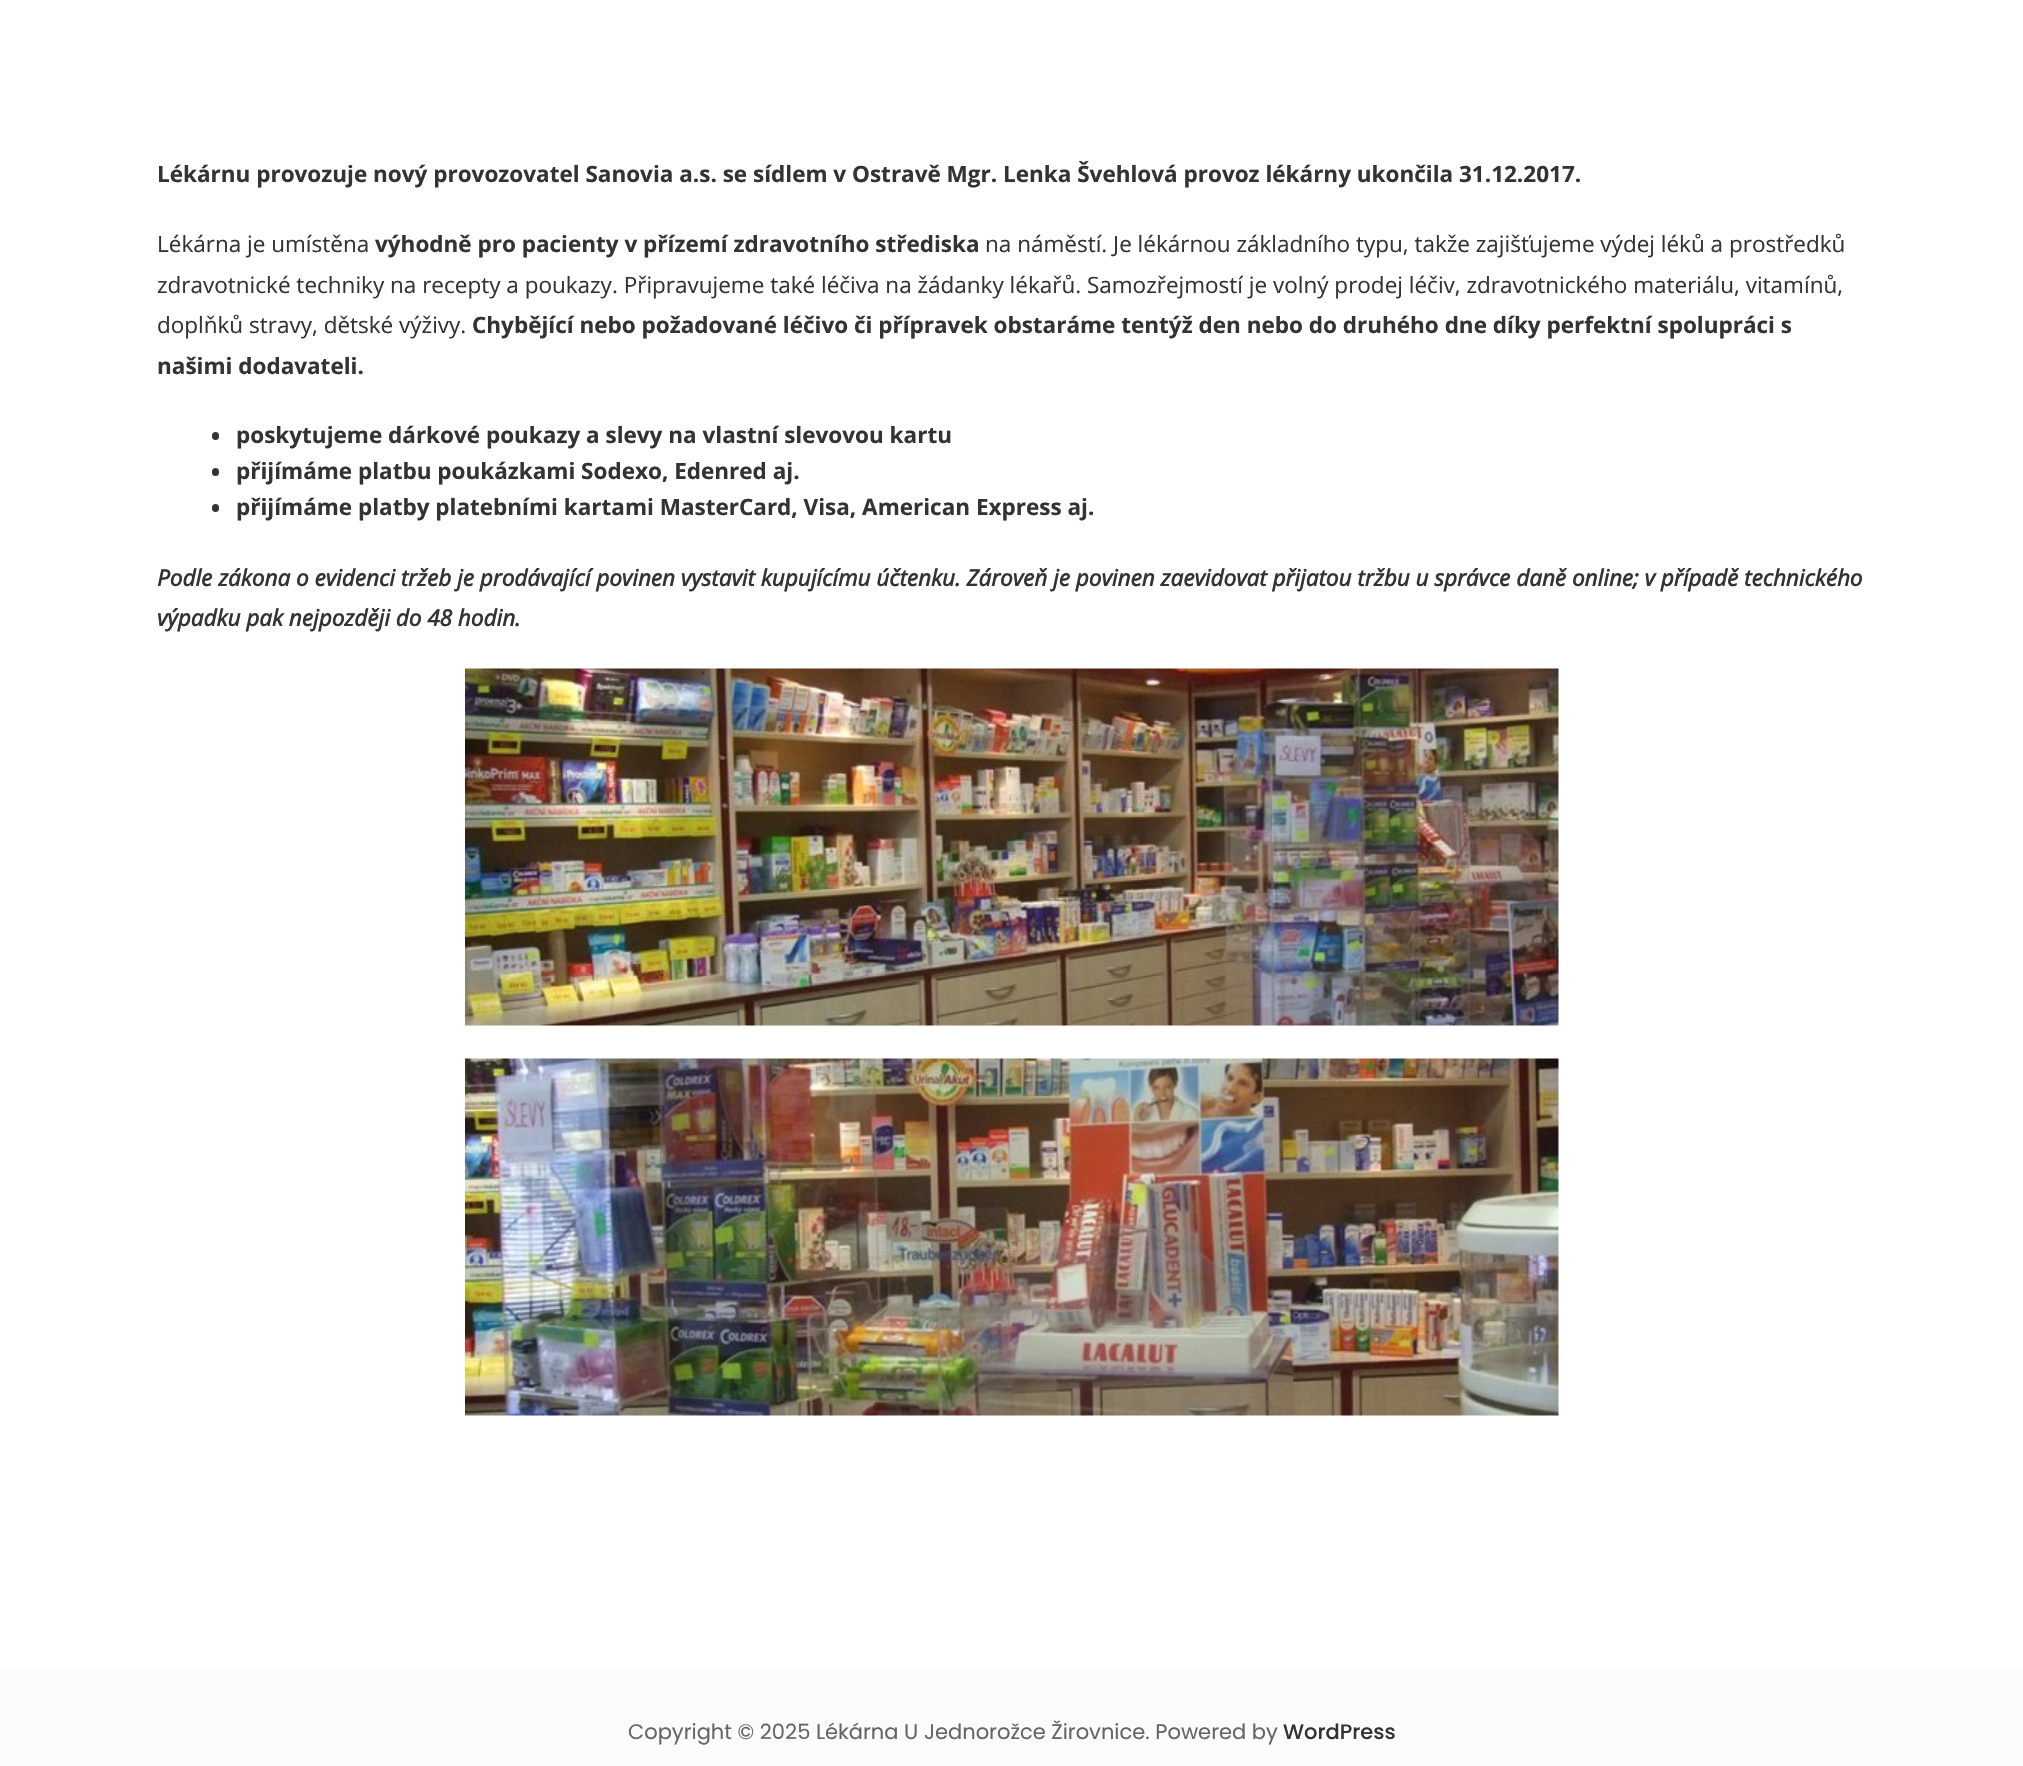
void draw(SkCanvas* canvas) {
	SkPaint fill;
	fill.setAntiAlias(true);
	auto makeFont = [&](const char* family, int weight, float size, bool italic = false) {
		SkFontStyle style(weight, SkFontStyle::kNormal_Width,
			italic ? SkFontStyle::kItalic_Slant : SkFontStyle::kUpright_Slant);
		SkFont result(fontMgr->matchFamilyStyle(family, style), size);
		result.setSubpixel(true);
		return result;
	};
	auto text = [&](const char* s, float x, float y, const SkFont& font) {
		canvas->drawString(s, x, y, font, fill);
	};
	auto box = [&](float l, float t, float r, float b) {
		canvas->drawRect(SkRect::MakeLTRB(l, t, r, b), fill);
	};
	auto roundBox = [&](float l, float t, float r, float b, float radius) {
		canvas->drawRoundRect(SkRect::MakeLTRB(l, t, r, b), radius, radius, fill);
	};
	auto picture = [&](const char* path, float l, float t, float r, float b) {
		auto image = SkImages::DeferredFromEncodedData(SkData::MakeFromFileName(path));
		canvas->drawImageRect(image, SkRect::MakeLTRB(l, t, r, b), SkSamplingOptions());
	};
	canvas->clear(0xFFFFFFFF);
	fill.setColor(0xFF333333);
	roundBox(212, 432, 219, 440, 3.5f);
	roundBox(212, 468, 219, 476, 3.5f);
	roundBox(212, 504, 219, 512, 3.5f);
	picture("image0.png", 465, 668, 1559, 1026);
	picture("image1.png", 465, 1058, 1559, 1416);
	fill.setColor(0xFFFBFBFB);
	box(0, 1668, 2023, 1766);
	auto font1 = makeFont("Open Sans", 700, 22.5f);
	fill.setColor(0xFF333333);
	text("Lékárnu provozuje nový provozovatel Sanovia a.s. se sídlem v Ostravě Mgr. Lenka Švehlová provoz lékárny ukončila 31.12.2017.", 157, 182, font1);
	auto font2 = makeFont("Open Sans", 400, 22.5f);
	text("Lékárna je umístěna", 157, 252, font2);
	text("výhodně pro pacienty v přízemí zdravotního střediska", 375, 252, font1);
	text("na náměstí. Je lékárnou základního typu, takže zajišťujeme výdej léků a prostředků", 985, 252, font2);
	text("zdravotnické techniky na recepty a poukazy. Připravujeme také léčiva na žádanky lékařů. Samozřejmostí je volný prodej léčiv, zdravotnického materiálu, vitamínů,", 157, 293, font2);
	text("doplňků stravy, dětské výživy.", 157, 333, font2);
	text("Chybějící nebo požadované léčivo či přípravek obstaráme tentýž den nebo do druhého dne díky perfektní spolupráci s", 472, 333, font1);
	text("našimi dodavateli.", 157, 374, font1);
	text("poskytujeme dárkové poukazy a slevy na vlastní slevovou kartu", 236, 443, font1);
	text("přijímáme platbu poukázkami Sodexo, Edenred aj.", 236, 479, font1);
	text("přijímáme platby platebními kartami MasterCard, Visa, American Express aj.", 236, 515, font1);
	auto font3 = makeFont("Open Sans", 700, 22.5f, true);
	text("Podle zákona o evidenci tržeb je prodávající povinen vystavit kupujícímu účtenku. Zároveň je povinen zaevidovat přijatou tržbu u správce daně online; v případě technického", 157, 586, font3);
	text("výpadku pak nejpozději do 48 hodin.", 157, 626, font3);
	auto font4 = makeFont("Poppins", 400, 21);
	fill.setColor(0xFF656565);
	text("Copyright © 2025 Lékárna U Jednorožce Žirovnice. Powered by", 628, 1739, font4);
	auto font5 = makeFont("Poppins", 500, 21);
	fill.setColor(0xFF333333);
	text("WordPress", 1283, 1739, font5);
}
